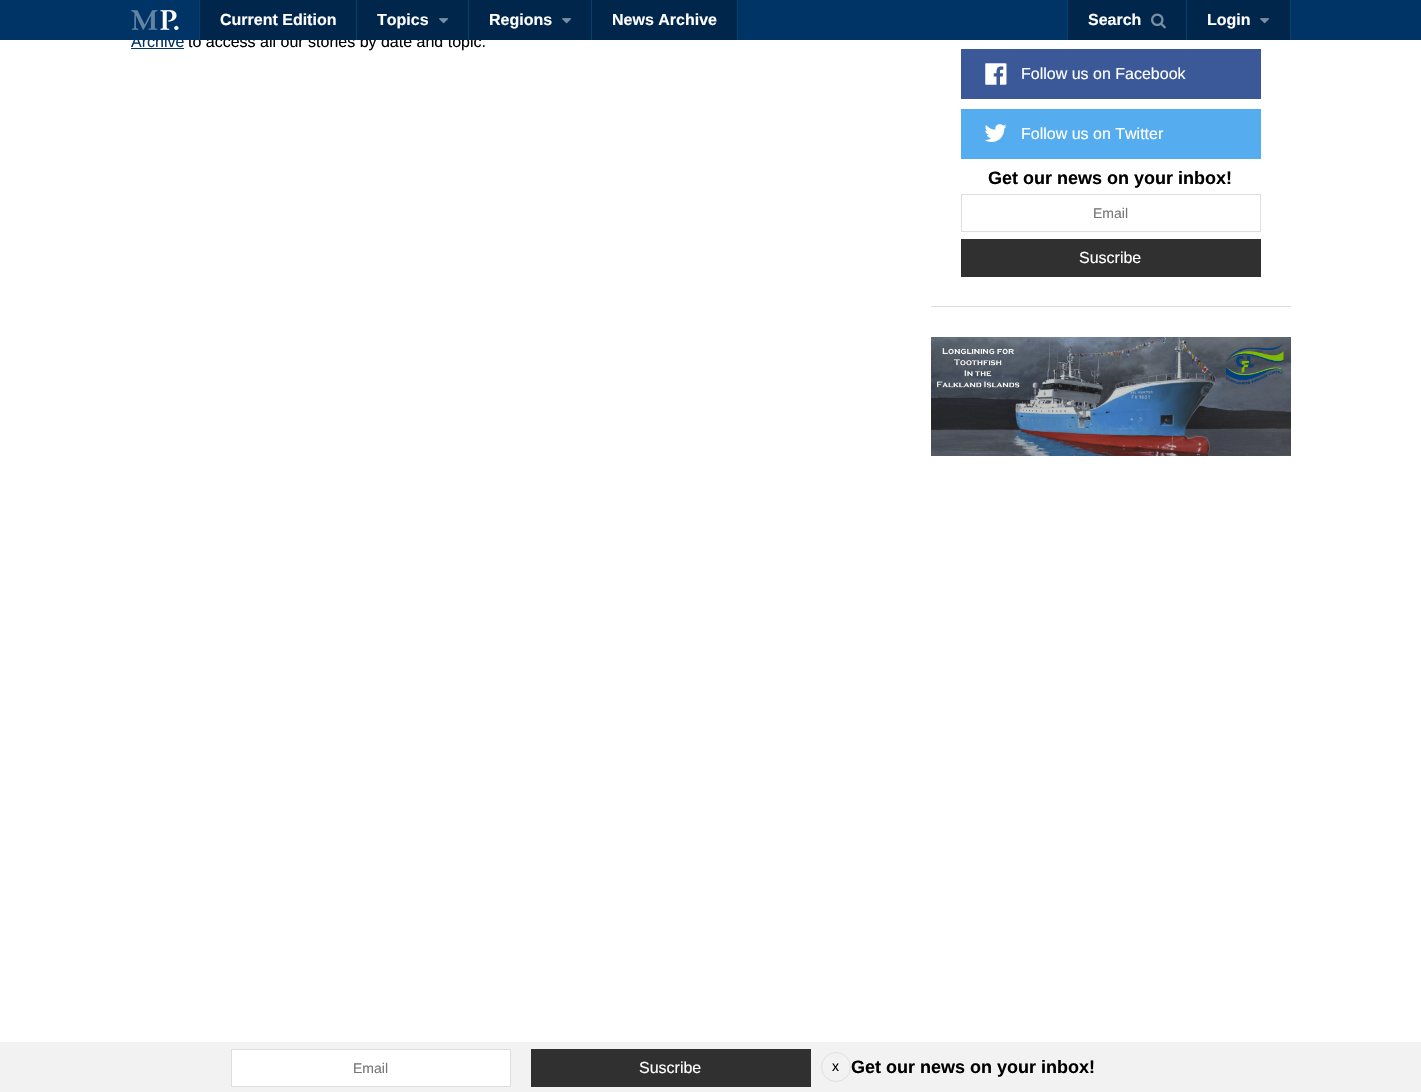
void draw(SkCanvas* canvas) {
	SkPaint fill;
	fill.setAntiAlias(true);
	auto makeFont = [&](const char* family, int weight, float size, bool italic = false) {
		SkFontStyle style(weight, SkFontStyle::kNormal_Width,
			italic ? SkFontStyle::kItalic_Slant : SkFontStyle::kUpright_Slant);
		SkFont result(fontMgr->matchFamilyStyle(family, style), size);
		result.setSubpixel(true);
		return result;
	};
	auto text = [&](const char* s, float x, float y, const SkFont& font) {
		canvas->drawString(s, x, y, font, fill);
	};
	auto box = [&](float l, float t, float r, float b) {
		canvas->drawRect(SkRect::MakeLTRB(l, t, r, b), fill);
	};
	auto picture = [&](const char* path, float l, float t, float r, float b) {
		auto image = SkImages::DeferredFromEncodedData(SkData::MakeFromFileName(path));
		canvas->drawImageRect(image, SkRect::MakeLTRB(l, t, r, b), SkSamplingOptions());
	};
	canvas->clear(0xFFFFFFFF);
	fill.setColor(0xFFF2F2F2);
	box(0, 1042, 1421, 1092);
	fill.setColor(0xFFFFFFFF);
	canvas->drawRect(SkRect::MakeLTRB(231.5f, 1049.5f, 510.5f, 1086.5f), fill);
	fill.setStyle(SkPaint::kStroke_Style);
	fill.setStrokeWidth(1);
	fill.setColor(0xFFDEDEDE);
	canvas->drawRect(SkRect::MakeLTRB(231.5f, 1049.5f, 510.5f, 1086.5f), fill);
	fill.setStyle(SkPaint::kFill_Style);
	fill.setColor(0xFF303030);
	box(531, 1049, 811, 1087);
	fill.setStyle(SkPaint::kStroke_Style);
	fill.setColor(0xFFE0E0E0);
	canvas->drawCircle(836, 1067, 14.5f, fill);
	fill.setStyle(SkPaint::kFill_Style);
	fill.setColor(0xFF003366);
	box(131, 48, 184, 49);
	fill.setColor(0xFFDDDDDD);
	box(931, 306, 1291, 307);
	fill.setColor(0xFF3B5998);
	box(961, 49, 1261, 99);
	picture("image3.png", 985, 63, 1007, 85);
	fill.setColor(0xFF55ACEE);
	box(961, 109, 1261, 159);
	picture("image4.png", 985, 124, 1007, 142);
	fill.setStyle(SkPaint::kStroke_Style);
	fill.setColor(0xFFDEDEDE);
	canvas->drawRect(SkRect::MakeLTRB(961.5f, 194.5f, 1260.5f, 231.5f), fill);
	fill.setStyle(SkPaint::kFill_Style);
	fill.setColor(0xFF303030);
	box(961, 239, 1261, 277);
	picture("image5.png", 931, 337, 1291, 456);
	auto font1 = makeFont("Liberation Sans", 400, 14);
	fill.setColor(0xFF757575);
	text("Email", 353, 1073, font1);
	auto font2 = makeFont("Liberation Sans", 400, 16);
	fill.setColor(0xFFFFFFFF);
	text("Suscribe", 639, 1073, font2);
	fill.setColor(0xFF000000);
	text("x", 832, 1071, font1);
	auto font3 = makeFont("Liberation Sans", 700, 18);
	text("Get our news on your inbox!", 851, 1073, font3);
	fill.setColor(0xFF003366);
	text("Archive", 131, 47, font2);
	fill.setColor(0xFF000000);
	text("to access all our stories by date and topic.", 188, 47, font2);
	fill.setColor(0xFF003366);
	box(0, 0, 1421, 40);
	fill.setColor(0xFF00264C);
	box(1187, 0, 1290, 40);
	auto font4 = makeFont("Liberation Sans", 700, 16);
	fill.setColor(0xFFFFFFFF);
	text("Login", 1207, 25, font4);
	picture("image1.png", 1260, 18, 1270, 24);
	fill.setColor(0xFF00446C);
	box(1290, 0, 1291, 40);
	fill.setColor(0xFF00264C);
	box(1068, 0, 1186, 40);
	fill.setColor(0xFFFFFFFF);
	text("Search", 1088, 25, font4);
	picture("image2.png", 1151, 13, 1166, 29);
	fill.setColor(0xFF00446C);
	box(1067, 0, 1068, 40);
	box(1186, 0, 1187, 40);
	fill.setColor(0xFF00264C);
	box(592, 0, 737, 40);
	fill.setColor(0xFFFFFFFF);
	text("News Archive", 612, 25, font4);
	fill.setColor(0xFF00446C);
	box(737, 0, 738, 40);
	fill.setColor(0xFF00264C);
	box(469, 0, 591, 40);
	fill.setColor(0xFFFFFFFF);
	text("Regions", 489, 25, font4);
	picture("image1.png", 562, 18, 572, 24);
	fill.setColor(0xFF00446C);
	box(591, 0, 592, 40);
	fill.setColor(0xFF00264C);
	box(357, 0, 468, 40);
	fill.setColor(0xFFFFFFFF);
	text("Topics", 377, 25, font4);
	picture("image1.png", 439, 18, 449, 24);
	fill.setColor(0xFF00446C);
	box(468, 0, 469, 40);
	fill.setColor(0xFF00264C);
	box(200, 0, 356, 40);
	fill.setColor(0xFFFFFFFF);
	text("Current Edition", 220, 25, font4);
	fill.setColor(0xFF00446C);
	box(199, 0, 200, 40);
	box(356, 0, 357, 40);
	picture("image0.png", 131, 10, 179, 30);
	fill.setColor(0xFFFFFFFF);
	text("Follow us on Facebook", 1021, 79, font2);
	text("Follow us on Twitter", 1021, 139, font2);
	fill.setColor(0xFF000000);
	text("Get our news on your inbox!", 988, 184, font3);
	fill.setColor(0xFF757575);
	text("Email", 1093, 218, font1);
	fill.setColor(0xFFFFFFFF);
	text("Suscribe", 1079, 263, font2);
}
